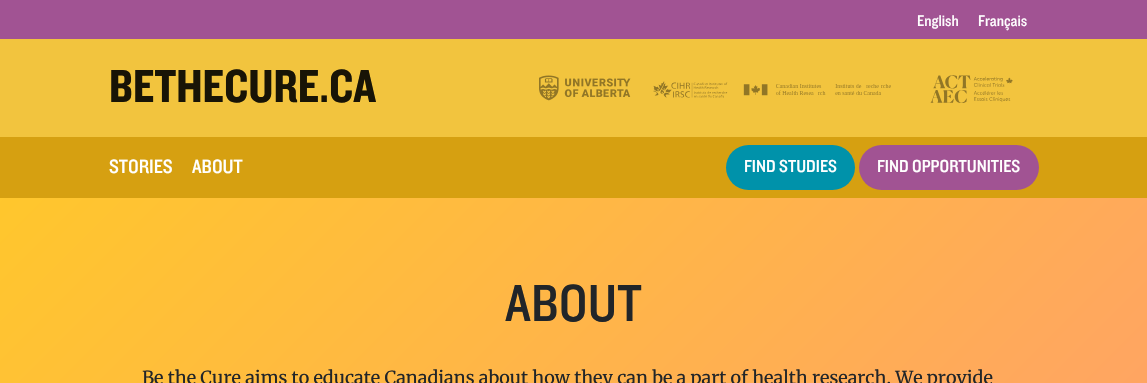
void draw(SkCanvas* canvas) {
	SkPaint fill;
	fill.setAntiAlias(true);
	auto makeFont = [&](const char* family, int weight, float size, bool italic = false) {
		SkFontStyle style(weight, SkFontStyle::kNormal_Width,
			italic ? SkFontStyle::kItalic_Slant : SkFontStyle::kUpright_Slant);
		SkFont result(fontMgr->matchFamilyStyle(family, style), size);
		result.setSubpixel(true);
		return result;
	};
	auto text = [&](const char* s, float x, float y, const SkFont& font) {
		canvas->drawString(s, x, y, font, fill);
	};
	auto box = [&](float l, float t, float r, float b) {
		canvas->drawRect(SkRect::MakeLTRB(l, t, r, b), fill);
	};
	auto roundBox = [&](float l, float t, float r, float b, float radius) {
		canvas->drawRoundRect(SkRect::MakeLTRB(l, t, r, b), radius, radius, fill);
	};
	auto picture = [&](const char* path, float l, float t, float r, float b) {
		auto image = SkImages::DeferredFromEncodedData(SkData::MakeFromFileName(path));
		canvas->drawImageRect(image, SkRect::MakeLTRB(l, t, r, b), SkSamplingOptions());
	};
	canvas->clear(0xFFA15393);
	fill.setColor(0xFFF2C43E);
	box(0, 39, 1147, 137);
	picture("image0.png", 539, 75, 631, 101);
	picture("image1.png", 653, 81, 891, 98);
	picture("image2.png", 930, 75, 1013, 103);
	fill.setColor(0xFFD6A011);
	box(0, 137, 1147, 198);
	fill.setColor(0xFF0092AA);
	roundBox(726, 145, 855, 190, 22.5f);
	fill.setColor(0xFFA15393);
	roundBox(859, 145, 1039, 190, 22.5f);
	{
		const SkColor colors[] = {0xFFFFC72C, 0xFFFFA168};
		const float stops[] = {0, 1};
		const SkPoint ends[] = {{195, -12}, {945, 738}};
		fill.setShader(SkGradientShader::MakeLinear(ends, colors, stops, 2, SkTileMode::kClamp));
		fill.setAlpha(255);
	}
	box(0, 198, 1147, 383);
	auto font1 = makeFont("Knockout", 500, 16);
	fill.setShader(nullptr);
	fill.setColor(0xFFFFFFFF);
	text("English", 917, 26, font1);
	text("Français", 978, 26, font1);
	auto font2 = makeFont("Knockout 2", 500, 48);
	fill.setColor(0xFF181406);
	text("BETHECURE.CA", 109, 102, font2);
	auto font3 = makeFont("Knockout", 500, 20);
	fill.setColor(0xFFFFFFFF);
	text("STORIES", 109, 173, font3);
	text("ABOUT", 192, 173, font3);
	auto font4 = makeFont("Knockout", 500, 18);
	text("FIND STUDIES", 744, 172, font4);
	text("FIND OPPORTUNITIES", 877, 172, font4);
	auto font5 = makeFont("Knockout", 500, 54);
	fill.setColor(0xFF212529);
	text("ABOUT", 505, 321, font5);
	auto font6 = makeFont("Merriweather", 400, 18);
	text("Be the Cure aims to educate Canadians about how they can be a part of health research. We provide", 142, 384, font6);
}
